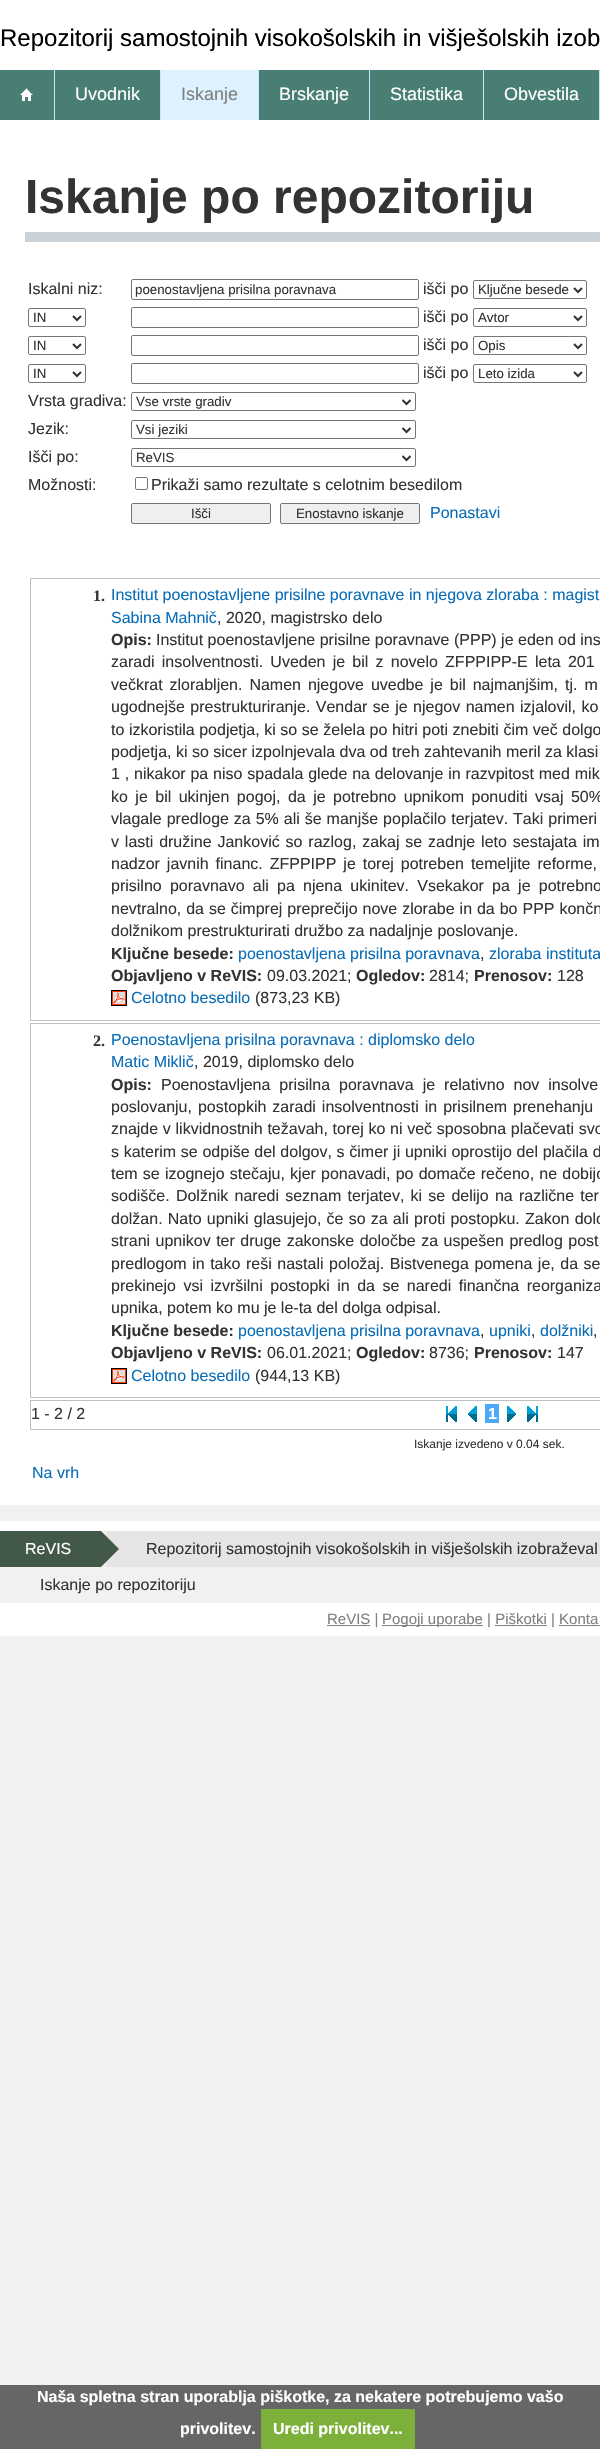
void draw(SkCanvas* canvas) {
	SkPaint fill;
	fill.setAntiAlias(true);
	auto makeFont = [&](const char* family, int weight, float size, bool italic = false) {
		SkFontStyle style(weight, SkFontStyle::kNormal_Width,
			italic ? SkFontStyle::kItalic_Slant : SkFontStyle::kUpright_Slant);
		SkFont result(fontMgr->matchFamilyStyle(family, style), size);
		result.setSubpixel(true);
		return result;
	};
	auto text = [&](const char* s, float x, float y, const SkFont& font) {
		canvas->drawString(s, x, y, font, fill);
	};
	auto spacedText = [&](const char* s, float x, float y, const SkFont& font, const SkPaint& ink, float letter, float word) {
		std::vector<SkGlyphID> glyphs(font.countText(s, strlen(s), SkTextEncoding::kUTF8));
		std::vector<float> xs(glyphs.size());
		font.textToGlyphs(s, strlen(s), SkTextEncoding::kUTF8, glyphs);
		font.getXPos(glyphs, xs, x);
		float extra = 0;
		for (size_t i = 0; i < glyphs.size(); i++) {
			xs[i] += extra;
			extra += letter + word * (glyphs[i] == font.unicharToGlyph(' '));
		}
		canvas->drawTextBlob(SkTextBlob::MakeFromPosHGlyphs(glyphs, xs, y, font), 0, 0, ink);
	};
	auto box = [&](float l, float t, float r, float b) {
		canvas->drawRect(SkRect::MakeLTRB(l, t, r, b), fill);
	};
	auto picture = [&](const char* path, float l, float t, float r, float b) {
		auto image = SkImages::DeferredFromEncodedData(SkData::MakeFromFileName(path));
		canvas->drawImageRect(image, SkRect::MakeLTRB(l, t, r, b), SkSamplingOptions());
	};
	canvas->clear(0xFFF1F1F1);
	fill.setColor(0xFFFFFFFF);
	box(0, 0, 600, 1505);
	fill.setColor(0xFF487E73);
	box(0, 70, 599, 120);
	picture("image0.png", 20, 88, 33, 101);
	fill.setColor(0xFFC6E4FD);
	box(54, 70, 55, 120);
	fill.setColor(0xFFDEF1FE);
	box(161, 70, 258, 120);
	fill.setColor(0xFFC6E4FD);
	box(160, 70, 161, 120);
	box(258, 70, 259, 120);
	box(369, 70, 370, 120);
	box(483, 70, 484, 120);
	box(599, 70, 600, 120);
	fill.setColor(0xFFCAD2D7);
	box(25, 232, 600, 242);
	fill.setStyle(SkPaint::kStroke_Style);
	fill.setStrokeWidth(1);
	fill.setColor(0xFF767676);
	canvas->drawRoundRect(SkRect::MakeLTRB(131.5f, 279.5f, 418.5f, 299.5f), 1.5f, 1.5f, fill);
	canvas->drawRoundRect(SkRect::MakeLTRB(473.5f, 280.5f, 586.5f, 298.5f), 1.5f, 1.5f, fill);
	fill.setStrokeWidth(2);
	fill.setColor(0xFF333333);
	canvas->drawPath(SkPathBuilder().moveTo(574, 288).lineTo(578, 292).lineTo(582, 288).detach(), fill);
	fill.setStrokeWidth(1);
	fill.setColor(0xFF767676);
	canvas->drawRoundRect(SkRect::MakeLTRB(28.5f, 308.5f, 85.5f, 326.5f), 1.5f, 1.5f, fill);
	fill.setStrokeWidth(2);
	fill.setColor(0xFF333333);
	canvas->drawPath(SkPathBuilder().moveTo(73, 316).lineTo(77, 320).lineTo(81, 316).detach(), fill);
	fill.setStrokeWidth(1);
	fill.setColor(0xFF767676);
	canvas->drawRoundRect(SkRect::MakeLTRB(131.5f, 307.5f, 418.5f, 327.5f), 1.5f, 1.5f, fill);
	canvas->drawRoundRect(SkRect::MakeLTRB(473.5f, 308.5f, 586.5f, 326.5f), 1.5f, 1.5f, fill);
	fill.setStrokeWidth(2);
	fill.setColor(0xFF333333);
	canvas->drawPath(SkPathBuilder().moveTo(574, 316).lineTo(578, 320).lineTo(582, 316).detach(), fill);
	fill.setStrokeWidth(1);
	fill.setColor(0xFF767676);
	canvas->drawRoundRect(SkRect::MakeLTRB(28.5f, 336.5f, 85.5f, 354.5f), 1.5f, 1.5f, fill);
	fill.setStrokeWidth(2);
	fill.setColor(0xFF333333);
	canvas->drawPath(SkPathBuilder().moveTo(73, 344).lineTo(77, 348).lineTo(81, 344).detach(), fill);
	fill.setStrokeWidth(1);
	fill.setColor(0xFF767676);
	canvas->drawRoundRect(SkRect::MakeLTRB(131.5f, 335.5f, 418.5f, 355.5f), 1.5f, 1.5f, fill);
	canvas->drawRoundRect(SkRect::MakeLTRB(473.5f, 336.5f, 586.5f, 354.5f), 1.5f, 1.5f, fill);
	fill.setStrokeWidth(2);
	fill.setColor(0xFF333333);
	canvas->drawPath(SkPathBuilder().moveTo(574, 344).lineTo(578, 348).lineTo(582, 344).detach(), fill);
	fill.setStrokeWidth(1);
	fill.setColor(0xFF767676);
	canvas->drawRoundRect(SkRect::MakeLTRB(28.5f, 364.5f, 85.5f, 382.5f), 1.5f, 1.5f, fill);
	fill.setStrokeWidth(2);
	fill.setColor(0xFF333333);
	canvas->drawPath(SkPathBuilder().moveTo(73, 372).lineTo(77, 376).lineTo(81, 372).detach(), fill);
	fill.setStrokeWidth(1);
	fill.setColor(0xFF767676);
	canvas->drawRoundRect(SkRect::MakeLTRB(131.5f, 363.5f, 418.5f, 383.5f), 1.5f, 1.5f, fill);
	canvas->drawRoundRect(SkRect::MakeLTRB(473.5f, 364.5f, 586.5f, 382.5f), 1.5f, 1.5f, fill);
	fill.setStrokeWidth(2);
	fill.setColor(0xFF333333);
	canvas->drawPath(SkPathBuilder().moveTo(574, 372).lineTo(578, 376).lineTo(582, 372).detach(), fill);
	fill.setStrokeWidth(1);
	fill.setColor(0xFF767676);
	canvas->drawRoundRect(SkRect::MakeLTRB(131.5f, 392.5f, 415.5f, 410.5f), 1.5f, 1.5f, fill);
	fill.setStrokeWidth(2);
	fill.setColor(0xFF333333);
	canvas->drawPath(SkPathBuilder().moveTo(402.5f, 400).lineTo(406.5f, 404).lineTo(410.5f, 400).detach(), fill);
	fill.setStrokeWidth(1);
	fill.setColor(0xFF767676);
	canvas->drawRoundRect(SkRect::MakeLTRB(131.5f, 420.5f, 415.5f, 438.5f), 1.5f, 1.5f, fill);
	fill.setStrokeWidth(2);
	fill.setColor(0xFF333333);
	canvas->drawPath(SkPathBuilder().moveTo(402.5f, 428).lineTo(406.5f, 432).lineTo(410.5f, 428).detach(), fill);
	fill.setStrokeWidth(1);
	fill.setColor(0xFF767676);
	canvas->drawRoundRect(SkRect::MakeLTRB(131.5f, 448.5f, 415.5f, 466.5f), 1.5f, 1.5f, fill);
	fill.setStrokeWidth(2);
	fill.setColor(0xFF333333);
	canvas->drawPath(SkPathBuilder().moveTo(402.5f, 456).lineTo(406.5f, 460).lineTo(410.5f, 456).detach(), fill);
	fill.setStrokeWidth(1);
	fill.setColor(0xFF767676);
	canvas->drawRoundRect(SkRect::MakeLTRB(135.5f, 477.5f, 147.5f, 489.5f), 1.5f, 1.5f, fill);
	fill.setStyle(SkPaint::kFill_Style);
	fill.setColor(0xFFEFEFEF);
	canvas->drawRoundRect(SkRect::MakeLTRB(131.5f, 503.5f, 270.5f, 523.5f), 1.5f, 1.5f, fill);
	fill.setStyle(SkPaint::kStroke_Style);
	fill.setColor(0xFF767676);
	canvas->drawRoundRect(SkRect::MakeLTRB(131.5f, 503.5f, 270.5f, 523.5f), 1.5f, 1.5f, fill);
	fill.setStyle(SkPaint::kFill_Style);
	fill.setColor(0xFFEFEFEF);
	canvas->drawRoundRect(SkRect::MakeLTRB(280.5f, 503.5f, 419.5f, 523.5f), 1.5f, 1.5f, fill);
	fill.setStyle(SkPaint::kStroke_Style);
	fill.setColor(0xFF767676);
	canvas->drawRoundRect(SkRect::MakeLTRB(280.5f, 503.5f, 419.5f, 523.5f), 1.5f, 1.5f, fill);
	fill.setColor(0xFFC0C0C0);
	canvas->drawRect(SkRect::MakeLTRB(30.5f, 578.5f, 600.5f, 1020.5f), fill);
	picture("image1.png", 111, 990, 127, 1006);
	canvas->drawRect(SkRect::MakeLTRB(30.5f, 1023.5f, 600.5f, 1397.5f), fill);
	picture("image1.png", 111, 1368, 127, 1384);
	canvas->drawRect(SkRect::MakeLTRB(30.5f, 1400.5f, 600.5f, 1429.5f), fill);
	picture("image2.png", 446, 1406, 457, 1422);
	picture("image3.png", 468, 1406, 477, 1422);
	fill.setStyle(SkPaint::kFill_Style);
	fill.setColor(0xFF4BA9F8);
	box(485, 1404, 499, 1423);
	picture("image4.png", 507, 1406, 516, 1422);
	picture("image5.png", 527, 1406, 538, 1422);
	fill.setColor(0xFFFFFFFF);
	box(0, 1521, 600, 1636);
	fill.setColor(0xFFF1F1F1);
	box(0, 1531, 600, 1603);
	fill.setColor(0xFF425849);
	box(0, 1531, 101, 1567);
	fill.setColor(0xFFE5E5E5);
	box(106, 1531, 600, 1567);
	fill.setColor(0xFF425849);
	canvas->drawPath(SkPathBuilder().moveTo(101, 1567).lineTo(101, 1531).lineTo(119, 1549).close().detach(), fill);
	fill.setColor(0xFF808080);
	box(327, 1625, 370, 1626);
	box(382, 1625, 483, 1626);
	box(495, 1625, 547, 1626);
	box(559, 1625, 600, 1626);
	fill.setColor(0xFF666666);
	box(0, 2385, 600, 2449);
	fill.setColor(0xFF7DAF3B);
	box(261, 2409, 415, 2449);
	auto font1 = makeFont("Liberation Sans", 400, 24);
	fill.setColor(0xFF000000);
	text("Repozitorij samostojnih visokošolskih in višješolskih izob", 0, 46, font1);
	auto font2 = makeFont("Liberation Sans", 400, 18);
	fill.setColor(0xFFFFFFFF);
	text("Uvodnik", 75, 100, font2);
	fill.setColor(0xFF808080);
	text("Iskanje", 181, 100, font2);
	fill.setColor(0xFFFFFFFF);
	text("Brskanje", 279, 100, font2);
	text("Statistika", 390, 100, font2);
	text("Obvestila", 504, 100, font2);
	auto font3 = makeFont("Liberation Sans", 700, 48);
	fill.setColor(0xFF333333);
	text("Iskanje po repozitoriju", 25, 213, font3);
	auto font4 = makeFont("Liberation Sans", 400, 16);
	text("Iskalni niz:", 28, 294, font4);
	auto font5 = makeFont("Liberation Sans", 400, 13.3f);
	text("poenostavljena prisilna poravnava", 135, 294, font5);
	text("išči po", 423, 294, font4);
	text("Ključne besede", 478, 294, font5);
	text("IN", 33, 322, font5);
	text("išči po", 423, 322, font4);
	text("Avtor", 478, 322, font5);
	text("IN", 33, 350, font5);
	text("išči po", 423, 350, font4);
	text("Opis", 478, 350, font5);
	text("IN", 33, 378, font5);
	text("išči po", 423, 378, font4);
	text("Leto izida", 478, 378, font5);
	text("Vrsta gradiva:", 28, 406, font4);
	text("Vse vrste gradiv", 136, 406, font5);
	text("Jezik:", 28, 434, font4);
	text("Vsi jeziki", 136, 434, font5);
	text("Išči po:", 28, 462, font4);
	text("ReVIS", 136, 462, font5);
	text("Možnosti:", 28, 490, font4);
	text("Prikaži samo rezultate s celotnim besedilom", 151, 490, font4);
	text("Išči", 191, 518, font5);
	text("Enostavno iskanje", 296, 518, font5);
	fill.setColor(0xFF0A6DB8);
	text("Ponastavi", 430, 518, font4);
	auto font6 = makeFont("Liberation Serif", 700, 16);
	fill.setColor(0xFF333333);
	text("1.", 93, 601, font6);
	fill.setColor(0xFF0A6DB8);
	text("Institut poenostavljene prisilne poravnave in njegova zloraba : magist", 111, 600, font4);
	text("Sabina Mahnič", 111, 623, font4);
	fill.setColor(0xFF333333);
	text(", 2020, magistrsko delo", 217, 623, font4);
	auto font7 = makeFont("Liberation Sans", 700, 16);
	text("Opis:", 111, 645, font7);
	text("Institut poenostavljene prisilne poravnave (PPP) je eden od ins", 156, 645, font4);
	spacedText("zaradi insolventnosti. Uveden je bil z novelo ZFPPIPP-E leta 201", 111, 667, font4, fill, 0, 2.75f);
	spacedText("večkrat zlorabljen. Namen njegove uvedbe je bil najmanjšim, tj. m", 111, 690, font4, fill, 0, 2.5f);
	spacedText("ugodnejše prestrukturiranje. Vendar se je njegov namen izjalovil, ko", 111, 712, font4, fill, 0, 1);
	spacedText("to izkoristila podjetja, ki so se želela po hitri poti znebiti čim več dolgo", 111, 735, font4, fill, 0, 0.1f);
	text("podjetja, ki so sicer izpolnjevala dva od treh zahtevanih meril za klasi", 111, 757, font4);
	spacedText("1 , nikakor pa niso spadala glede na delovanje in razvpitost med mik", 111, 779, font4, fill, 0, 0.4f);
	spacedText("ko je bil ukinjen pogoj, da je potrebno upnikom ponuditi vsaj 50%", 111, 802, font4, fill, 0, 3);
	spacedText("vlagale predloge za 5% ali še manjše poplačilo terjatev. Taki primeri", 111, 824, font4, fill, 0, 0.5f);
	spacedText("v lasti družine Janković so razlog, zakaj se zadnje leto sestajata im", 111, 847, font4, fill, 0, 1.4f);
	spacedText("nadzor javnih financ. ZFPPIPP je torej potreben temeljite reforme,", 111, 869, font4, fill, 0, 2.5f);
	spacedText("prisilno poravnavo ali pa njena ukinitev. Vsekakor pa je potrebno", 111, 891, font4, fill, 0, 3.75f);
	spacedText("nevtralno, da se čimprej preprečijo nove zlorabe in da bo PPP končn", 111, 914, font4, fill, 0, 0.5f);
	text("dolžnikom prestrukturirati družbo za nadaljnje poslovanje.", 111, 936, font4);
	text("Ključne besede:", 111, 959, font7);
	fill.setColor(0xFF0A6DB8);
	text("poenostavljena prisilna poravnava", 238, 959, font4);
	fill.setColor(0xFF333333);
	text(",", 480, 959, font4);
	fill.setColor(0xFF0A6DB8);
	text("zloraba instituta", 489, 959, font4);
	fill.setColor(0xFF333333);
	text("Objavljeno v ReVIS:", 111, 981, font7);
	text("09.03.2021;", 267, 981, font4);
	text("Ogledov:", 356, 981, font7);
	text("2814;", 429, 981, font4);
	text("Prenosov:", 474, 981, font7);
	text("128", 557, 981, font4);
	fill.setColor(0xFF0A6DB8);
	text("Celotno besedilo", 131, 1003, font4);
	fill.setColor(0xFF333333);
	text("(873,23 KB)", 255, 1003, font4);
	text("2.", 93, 1046, font6);
	fill.setColor(0xFF0A6DB8);
	text("Poenostavljena prisilna poravnava : diplomsko delo", 111, 1045, font4);
	text("Matic Miklič", 111, 1067, font4);
	fill.setColor(0xFF333333);
	text(", 2019, diplomsko delo", 194, 1067, font4);
	text("Opis:", 111, 1090, font7);
	spacedText("Poenostavljena prisilna poravnava je relativno nov insolve", 161, 1090, font4, fill, 0, 4.5f);
	spacedText("poslovanju, postopkih zaradi insolventnosti in prisilnem prenehanju", 111, 1112, font4, fill, 0, 1.5f);
	spacedText("znajde v likvidnostnih težavah, torej ko ni več sposobna plačevati svo", 111, 1134, font4, fill, 0, 0.25f);
	spacedText("s katerim se odpiše del dolgov, s čimer ji upniki oprostijo del plačila d", 111, 1157, font4, fill, 0, 0.25f);
	spacedText("tem se izognejo stečaju, kjer ponavadi, po domače rečeno, ne dobijo", 111, 1179, font4, fill, 0, 0.75f);
	spacedText("sodišče. Dolžnik naredi seznam terjatev, ki se delijo na različne ter", 111, 1201, font4, fill, 0, 1.75f);
	spacedText("dolžan. Nato upniki glasujejo, če so za ali proti postopku. Zakon dolo", 111, 1224, font4, fill, 0, 0.75f);
	spacedText("strani upnikov ter druge zakonske določbe za uspešen predlog post", 111, 1246, font4, fill, 0, 1);
	spacedText("predlogom in tako reši nastali položaj. Bistvenega pomena je, da se", 111, 1269, font4, fill, 0, 1.1f);
	spacedText("prekinejo vsi izvršilni postopki in da se naredi finančna reorganiza", 111, 1291, font4, fill, 0, 3);
	text("upnika, potem ko mu je le-ta del dolga odpisal.", 111, 1313, font4);
	text("Ključne besede:", 111, 1336, font7);
	fill.setColor(0xFF0A6DB8);
	text("poenostavljena prisilna poravnava", 238, 1336, font4);
	fill.setColor(0xFF333333);
	text(",", 480, 1336, font4);
	fill.setColor(0xFF0A6DB8);
	text("upniki", 489, 1336, font4);
	fill.setColor(0xFF333333);
	text(",", 531, 1336, font4);
	fill.setColor(0xFF0A6DB8);
	text("dolžniki", 540, 1336, font4);
	fill.setColor(0xFF333333);
	text(",", 593, 1336, font4);
	text("Objavljeno v ReVIS:", 111, 1358, font7);
	text("06.01.2021;", 267, 1358, font4);
	text("Ogledov:", 356, 1358, font7);
	text("8736;", 429, 1358, font4);
	text("Prenosov:", 474, 1358, font7);
	text("147", 557, 1358, font4);
	fill.setColor(0xFF0A6DB8);
	text("Celotno besedilo", 131, 1381, font4);
	fill.setColor(0xFF333333);
	text("(944,13 KB)", 255, 1381, font4);
	text("1 - 2 / 2", 31, 1419, font4);
	fill.setColor(0xFFFFFFFF);
	text("1", 488, 1419, font7);
	auto font8 = makeFont("Liberation Sans", 400, 12);
	fill.setColor(0xFF333333);
	text("Iskanje izvedeno v 0.04 sek.", 414, 1448, font8);
	fill.setColor(0xFF0A6DB8);
	text("Na vrh", 32, 1478, font4);
	fill.setColor(0xFFFFFFFF);
	text("ReVIS", 25, 1554, font4);
	fill.setColor(0xFF333333);
	text("Repozitorij samostojnih visokošolskih in višješolskih izobraževal", 146, 1554, font4);
	text("Iskanje po repozitoriju", 40, 1590, font4);
	auto font9 = makeFont("Liberation Sans", 400, 15);
	fill.setColor(0xFF808080);
	text("ReVIS |", 327, 1624, font9);
	text("Pogoji uporabe | Piškotki | Konta", 382, 1624, font9);
	fill.setColor(0xFFFFFFFF);
	text("Naša spletna stran uporablja piškotke, za nekatere potrebujemo vašo", 37, 2402, font7);
	text("privolitev.", 180, 2434, font7);
	text("Uredi privolitev...", 273, 2434, font7);
}
